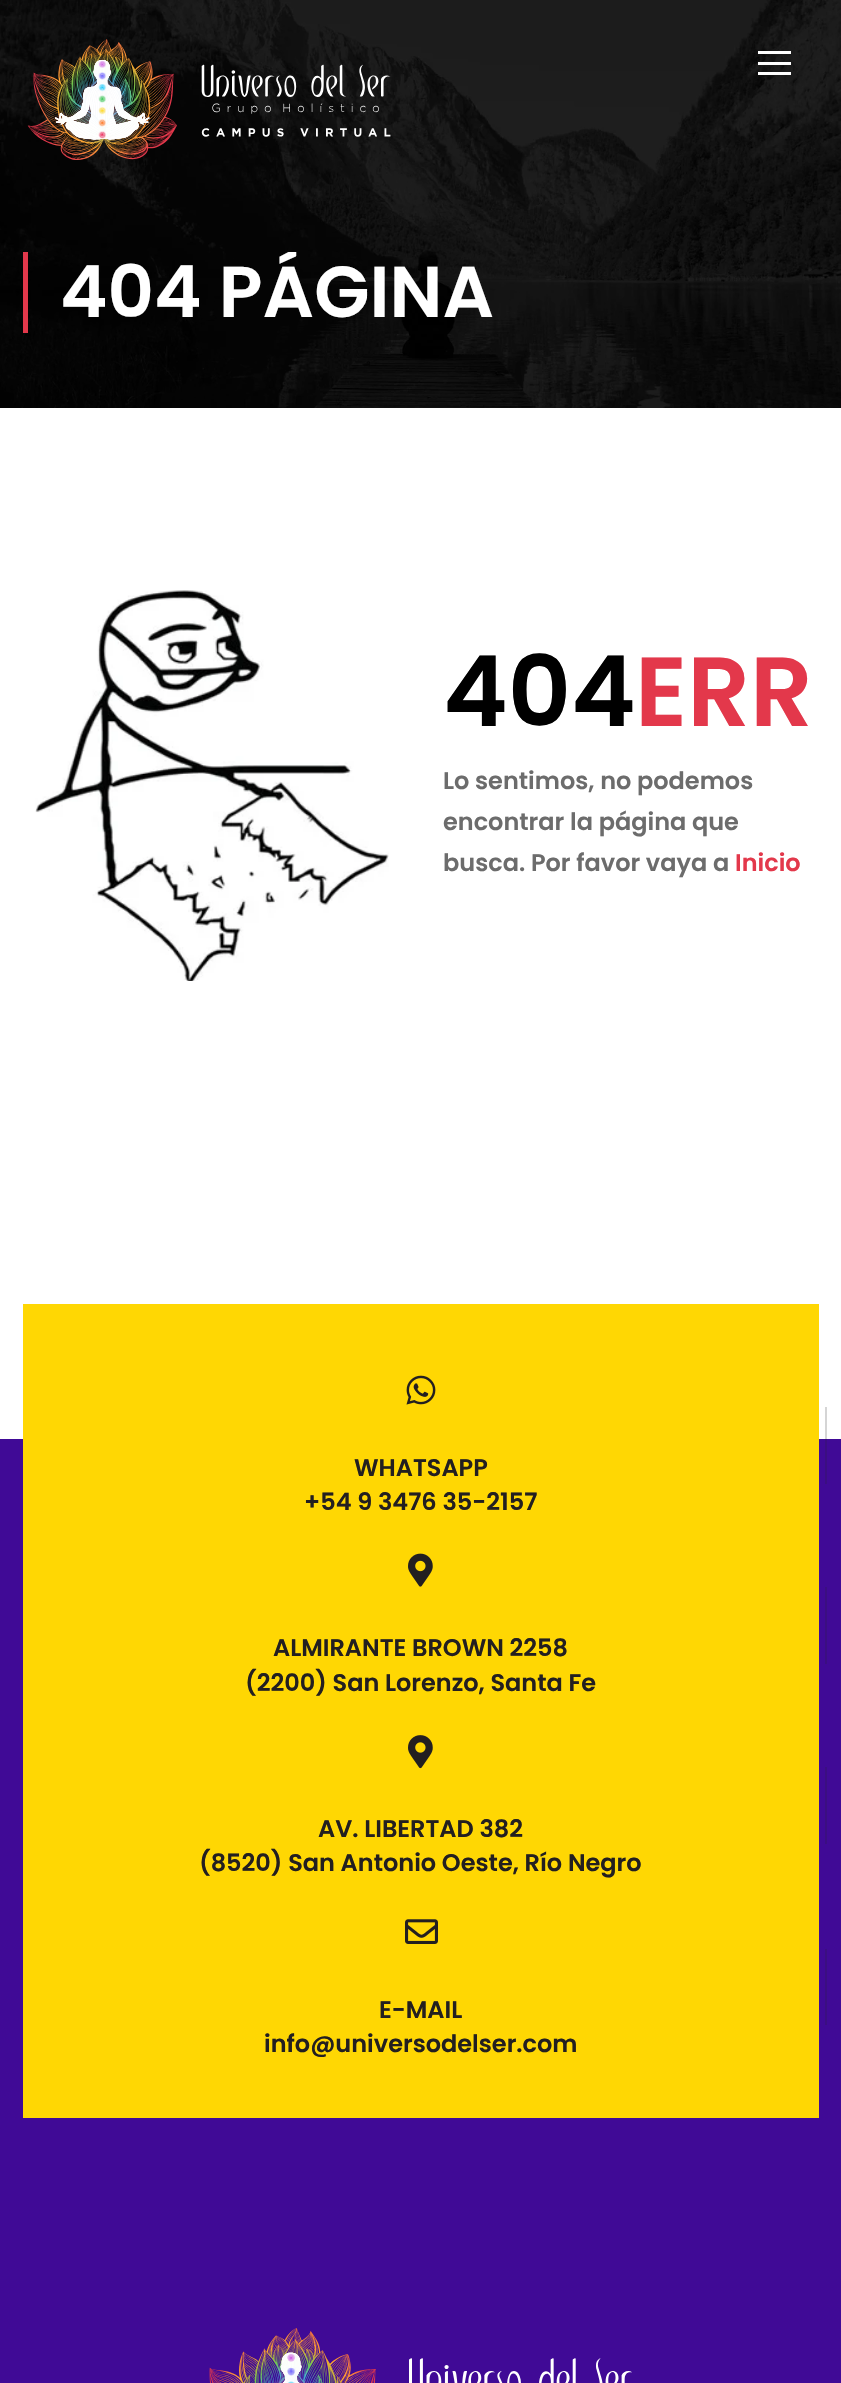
void draw(SkCanvas* canvas) {
	SkPaint fill;
	fill.setAntiAlias(true);
	auto makeFont = [&](const char* family, int weight, float size, bool italic = false) {
		SkFontStyle style(weight, SkFontStyle::kNormal_Width,
			italic ? SkFontStyle::kItalic_Slant : SkFontStyle::kUpright_Slant);
		SkFont result(fontMgr->matchFamilyStyle(family, style), size);
		result.setSubpixel(true);
		return result;
	};
	auto text = [&](const char* s, float x, float y, const SkFont& font) {
		canvas->drawString(s, x, y, font, fill);
	};
	auto box = [&](float l, float t, float r, float b) {
		canvas->drawRect(SkRect::MakeLTRB(l, t, r, b), fill);
	};
	auto picture = [&](const char* path, float l, float t, float r, float b) {
		auto image = SkImages::DeferredFromEncodedData(SkData::MakeFromFileName(path));
		canvas->drawImageRect(image, SkRect::MakeLTRB(l, t, r, b), SkSamplingOptions());
	};
	canvas->clear(0xFFFFFFFF);
	picture("image1.png", 0, 0, 841, 408);
	picture("image0.png", 27, 39, 391, 160);
	fill.setColor(0xFFFFFFFF);
	box(758, 51, 791, 54);
	box(758, 62, 791, 65);
	box(758, 72, 791, 75);
	fill.setColor(0xFFD5D5D5);
	box(825, 1407, 827, 1439);
	fill.setColor(0xFFE3384B);
	box(23, 252, 28, 333);
	picture("image2.png", 35, 590, 389, 981);
	fill.setColor(0xFF400A96);
	box(0, 1439, 841, 2383);
	fill.setColor(0xFF3B0F81);
	box(825, 1439, 827, 1484);
	fill.setColor(0xFFFFD703);
	box(23, 1304, 819, 2118);
	picture("image3.png", 406, 1375, 436, 1405);
	picture("image4.png", 408, 1553, 433, 1587);
	fill.setColor(0xFF3B0F81);
	box(825, 1587, 827, 1664);
	picture("image5.png", 408, 1735, 433, 1769);
	box(825, 1767, 827, 1844);
	picture("image6.png", 405, 1919, 438, 1944);
	box(825, 1949, 827, 2025);
	picture("image7.png", 209, 2328, 632, 2383);
	canvas->save();
	canvas->clipRect(SkRect::MakeLTRB(0, 252, 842, 333));
	auto font1 = makeFont("Poppins", 600, 72);
	fill.setColor(0xFFFFFFFF);
	text("404 PÁGINA", 60, 317, font1);
	canvas->restore();
	auto font2 = makeFont("Poppins", 600, 98);
	fill.setColor(0xFF000000);
	text("404", 443, 726, font2);
	fill.setColor(0xFFE3384B);
	text("ERR", 635, 726, font2);
	auto font3 = makeFont("Poppins", 600, 24);
	fill.setColor(0xFF6C6C6C);
	text("Lo sentimos, no podemos", 443, 789, font3);
	text("encontrar la página que", 443, 830, font3);
	text("busca. Por favor vaya a", 443, 871, font3);
	fill.setColor(0xFFE3384B);
	text("Inicio", 735, 871, font3);
	fill.setColor(0xFF231F20);
	text("WHATSAPP", 354, 1476, font3);
	text("+54 9 3476 35-2157", 304, 1510, font3);
	text("ALMIRANTE BROWN 2258", 273, 1656, font3);
	text("(2200) San Lorenzo, Santa Fe", 245, 1691, font3);
	text("AV. LIBERTAD 382", 318, 1837, font3);
	text("(8520) San Antonio Oeste, Río Negro", 199, 1871, font3);
	text("E-MAIL", 379, 2018, font3);
	text("info@universodelser.com", 264, 2052, font3);
}
